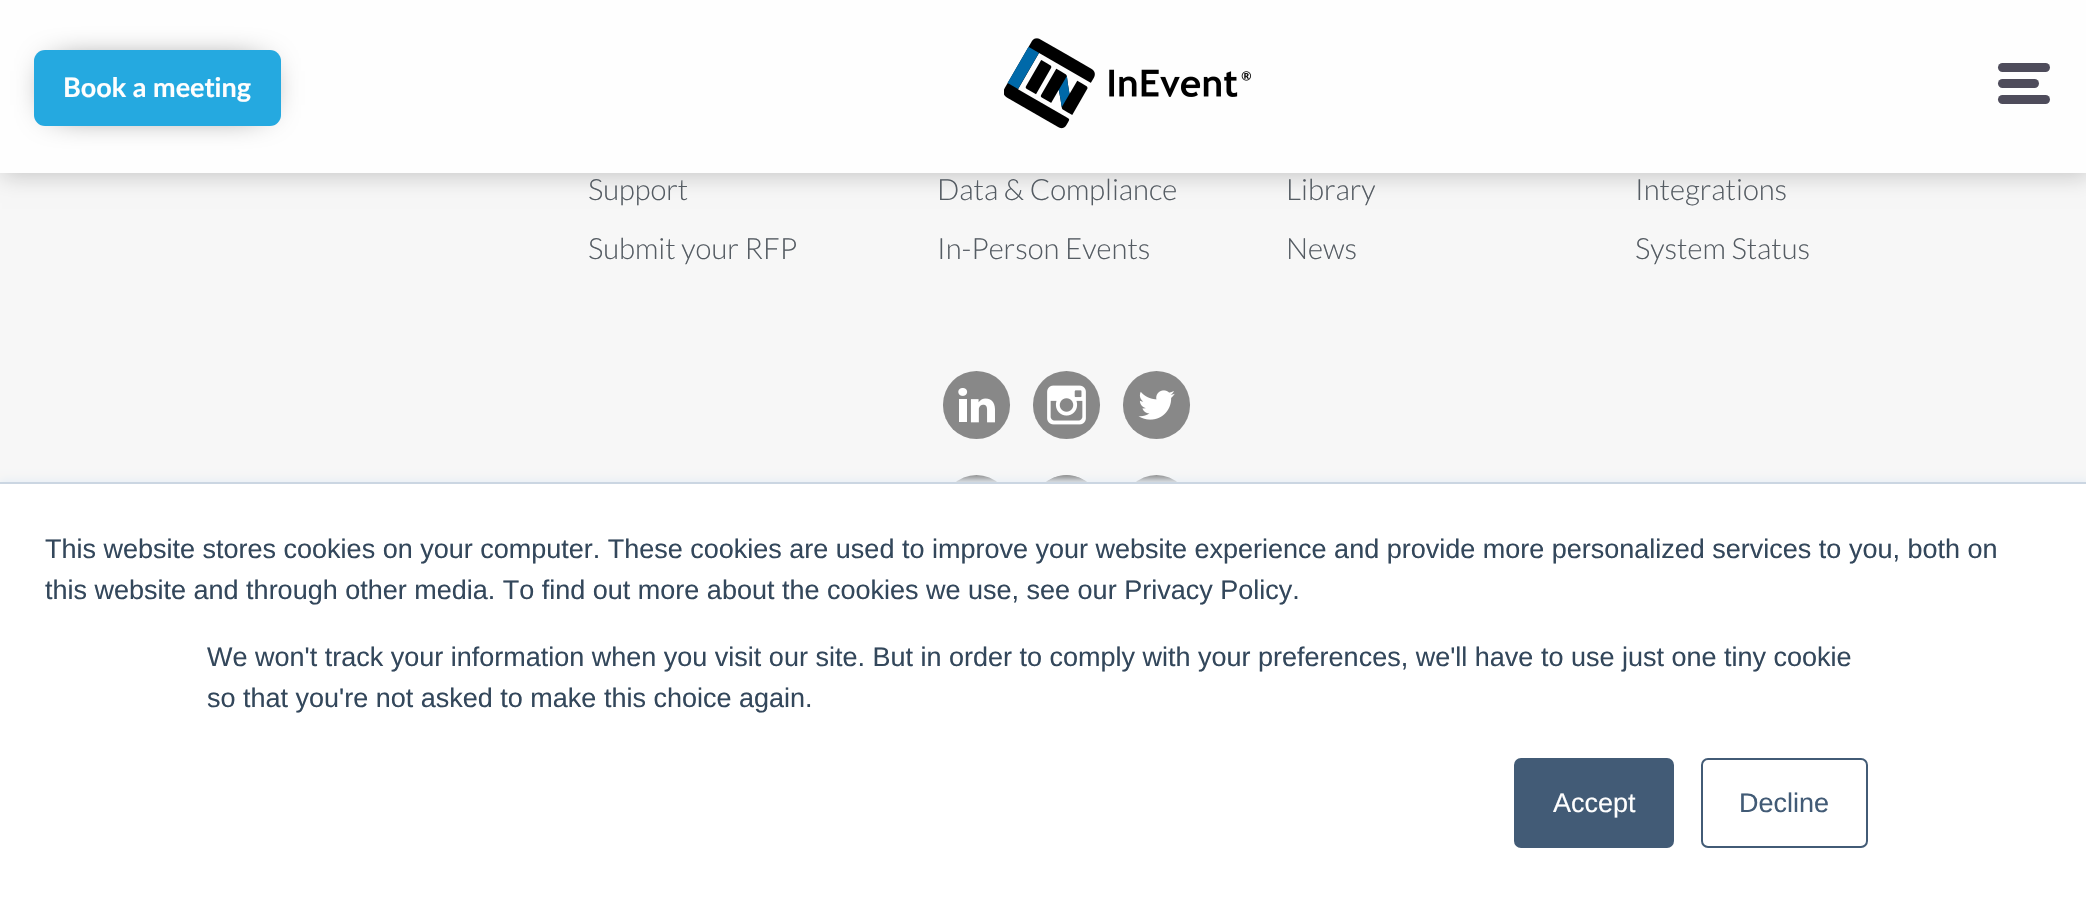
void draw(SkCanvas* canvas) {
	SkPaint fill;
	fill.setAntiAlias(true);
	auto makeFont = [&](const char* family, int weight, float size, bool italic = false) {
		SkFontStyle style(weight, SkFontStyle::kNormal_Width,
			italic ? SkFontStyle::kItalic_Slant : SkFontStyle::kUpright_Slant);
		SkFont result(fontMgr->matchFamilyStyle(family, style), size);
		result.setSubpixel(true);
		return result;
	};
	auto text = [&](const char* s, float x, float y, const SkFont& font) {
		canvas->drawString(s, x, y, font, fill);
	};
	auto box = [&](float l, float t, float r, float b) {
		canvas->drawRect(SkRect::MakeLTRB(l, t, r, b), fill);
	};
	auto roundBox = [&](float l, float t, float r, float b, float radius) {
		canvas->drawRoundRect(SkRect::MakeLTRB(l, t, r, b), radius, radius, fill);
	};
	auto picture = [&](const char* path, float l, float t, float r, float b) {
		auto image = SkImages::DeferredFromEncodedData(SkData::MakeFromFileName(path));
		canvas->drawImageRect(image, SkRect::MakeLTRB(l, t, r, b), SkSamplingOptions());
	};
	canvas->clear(0xFFF7F7F7);
	fill.setColor(0x33000000);
	fill.setMaskFilter(SkMaskFilter::MakeBlur(kNormal_SkBlurStyle, 11));
	canvas->drawRect(SkRect::MakeLTRB(2, 2, 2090, 176), fill);
	fill.setMaskFilter(nullptr);
	fill.setColor(0xFFFEFEFE);
	box(0, 0, 2086, 173);
	fill.setColor(0xFF000000);
	fill.setMaskFilter(SkMaskFilter::MakeBlur(kNormal_SkBlurStyle, 18));
	canvas->drawRect(SkRect::MakeLTRB(54, 70, 261, 106), fill);
	fill.setMaskFilter(nullptr);
	fill.setColor(0xFF25A9E0);
	roundBox(34, 50, 281, 126, 11);
	picture("image0.png", 1004, 38, 1251, 129);
	fill.setColor(0xFF4E4C5B);
	roundBox(1998, 63, 2050, 72, 4.5f);
	roundBox(1998, 79, 2039, 88, 4.5f);
	roundBox(1998, 95, 2050, 104, 4.5f);
	fill.setColor(0xFF888888);
	roundBox(943, 371, 1010, 439, 33.5f);
	picture("image1.png", 958, 388, 995, 423);
	roundBox(1033, 371, 1100, 439, 33.5f);
	picture("image2.png", 1047, 385, 1086, 425);
	roundBox(1123, 371, 1190, 439, 33.5f);
	picture("image3.png", 1138, 390, 1175, 420);
	canvas->drawCircle(976.5f, 508.5f, 33.5f, fill);
	canvas->drawCircle(1066.5f, 508.5f, 33.5f, fill);
	picture("image4.png", 1046, 475, 1087, 482);
	canvas->drawCircle(1156.5f, 508.5f, 33.5f, fill);
	fill.setColor(0xFFEAF0F6);
	fill.setMaskFilter(SkMaskFilter::MakeBlur(kNormal_SkBlurStyle, 3.5f));
	canvas->drawRect(SkRect::MakeLTRB(0, 479, 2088, 905), fill);
	fill.setMaskFilter(nullptr);
	fill.setColor(0xFFFFFFFF);
	box(0, 484, 2086, 905);
	fill.setColor(0xFFCBD6E2);
	box(0, 482, 2086, 484);
	fill.setColor(0xFF425B76);
	canvas->drawRoundRect(SkRect::MakeLTRB(1515, 759, 1673, 847), 6, 6, fill);
	fill.setStyle(SkPaint::kStroke_Style);
	fill.setStrokeWidth(2);
	canvas->drawRoundRect(SkRect::MakeLTRB(1515, 759, 1673, 847), 6, 6, fill);
	canvas->drawRoundRect(SkRect::MakeLTRB(1702, 759, 1867, 847), 6, 6, fill);
	auto font1 = makeFont("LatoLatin", 700, 27);
	fill.setStyle(SkPaint::kFill_Style);
	fill.setColor(0xFFFEFEFE);
	text("Book a meeting", 63, 97, font1);
	auto font2 = makeFont("Lato", 300, 29.25f);
	fill.setColor(0xFF555C63);
	text("Support", 588, 200, font2);
	text("Submit your RFP", 588, 259, font2);
	text("Data & Compliance", 937, 200, font2);
	text("In-Person Events", 937, 259, font2);
	text("Library", 1286, 200, font2);
	text("News", 1286, 259, font2);
	text("Integrations", 1635, 200, font2);
	text("System Status", 1635, 259, font2);
	auto font3 = makeFont("Liberation Sans", 400, 27);
	fill.setColor(0xFF33475B);
	text("This website stores cookies on your computer. These cookies are used to improve your website experience and provide more personalized services to you, both on", 45, 558, font3);
	text("this website and through other media. To find out more about the cookies we use, see our Privacy Policy.", 45, 599, font3);
	text("We won't track your information when you visit our site. But in order to comply with your preferences, we'll have to use just one tiny cookie", 207, 666, font3);
	text("so that you're not asked to make this choice again.", 207, 707, font3);
	fill.setColor(0xFFFEFEFE);
	text("Accept", 1553, 812, font3);
	fill.setColor(0xFF425B76);
	text("Decline", 1739, 812, font3);
}
